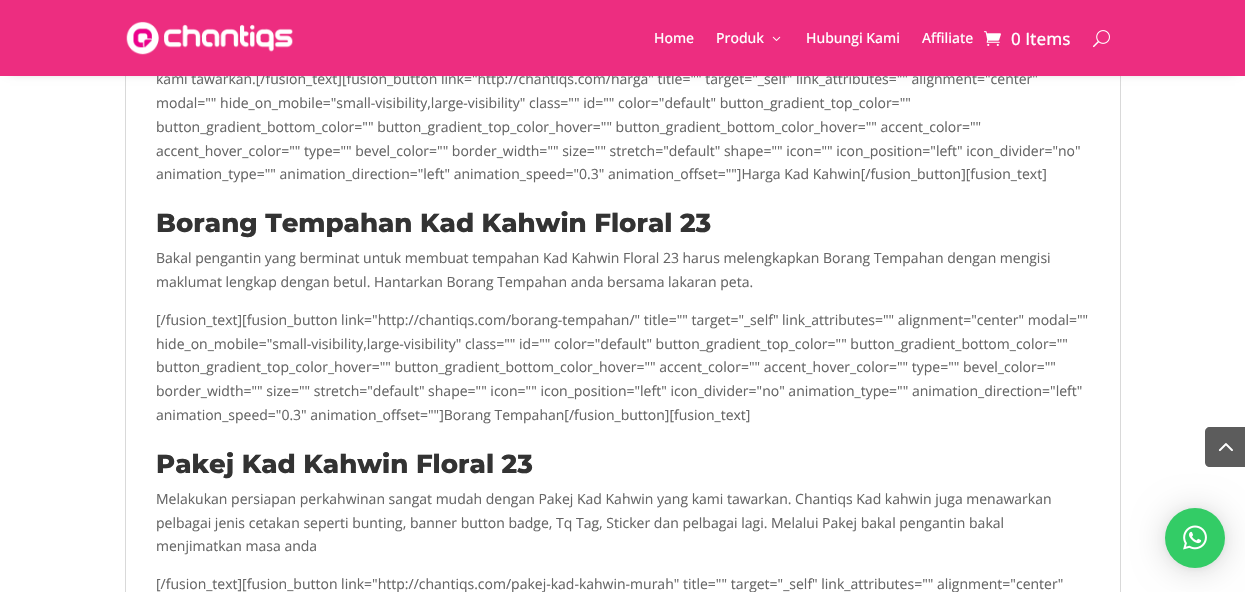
void draw(SkCanvas* canvas) {
	SkPaint fill;
	fill.setAntiAlias(true);
	auto makeFont = [&](const char* family, int weight, float size, bool italic = false) {
		SkFontStyle style(weight, SkFontStyle::kNormal_Width,
			italic ? SkFontStyle::kItalic_Slant : SkFontStyle::kUpright_Slant);
		SkFont result(fontMgr->matchFamilyStyle(family, style), size);
		result.setSubpixel(true);
		return result;
	};
	auto text = [&](const char* s, float x, float y, const SkFont& font) {
		canvas->drawString(s, x, y, font, fill);
	};
	auto box = [&](float l, float t, float r, float b) {
		canvas->drawRect(SkRect::MakeLTRB(l, t, r, b), fill);
	};
	auto picture = [&](const char* path, float l, float t, float r, float b) {
		auto image = SkImages::DeferredFromEncodedData(SkData::MakeFromFileName(path));
		canvas->drawImageRect(image, SkRect::MakeLTRB(l, t, r, b), SkSamplingOptions());
	};
	canvas->clear(0xFFFFFFFF);
	fill.setStyle(SkPaint::kStroke_Style);
	fill.setStrokeWidth(1);
	fill.setColor(0xFFD9D9D9);
	canvas->drawRect(SkRect::MakeLTRB(125.5f, -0.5f, 1120.5f, 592.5f), fill);
	fill.setStyle(SkPaint::kFill_Style);
	fill.setColor(0x4D000000);
	fill.setMaskFilter(SkMaskFilter::MakeBlur(kNormal_SkBlurStyle, 5));
	canvas->drawRect(SkRect::MakeLTRB(10, 15, 1235, 71), fill);
	fill.setMaskFilter(nullptr);
	fill.setColor(0xFF999999);
	canvas->drawPath(SkPathBuilder().moveTo(1210, 427).lineTo(1245, 427).lineTo(1245, 467).lineTo(1210, 467).cubicTo(1207, 467, 1205, 465, 1205, 462).lineTo(1205, 432).cubicTo(1205, 429, 1207, 427, 1210, 427).close().detach(), fill);
	picture("image4.png", 1219, 443, 1233, 451);
	fill.setColor(0x66000000);
	canvas->drawPath(SkPathBuilder().moveTo(1210, 427).lineTo(1245, 427).lineTo(1245, 467).lineTo(1210, 467).cubicTo(1207, 467, 1205, 465, 1205, 462).lineTo(1205, 432).cubicTo(1205, 429, 1207, 427, 1210, 427).close().detach(), fill);
	picture("image5.png", 1218, 443, 1233, 452);
	fill.setColor(0x29000000);
	fill.setMaskFilter(SkMaskFilter::MakeBlur(kNormal_SkBlurStyle, 16));
	canvas->drawRoundRect(SkRect::MakeLTRB(1165, 510, 1225, 570), 30, 30, fill);
	fill.setMaskFilter(nullptr);
	fill.setColor(0x0F000000);
	fill.setMaskFilter(SkMaskFilter::MakeBlur(kNormal_SkBlurStyle, 3));
	canvas->drawRoundRect(SkRect::MakeLTRB(1165, 509, 1225, 569), 30, 30, fill);
	fill.setMaskFilter(nullptr);
	fill.setColor(0xFF33CC66);
	canvas->drawCircle(1195, 538, 30, fill);
	picture("image6.png", 1183, 525, 1207, 550);
	auto font1 = makeFont("Open Sans", 400, 14);
	fill.setColor(0xFF666666);
	text("kami tawarkan.[/fusion_text][fusion_button link=\"http://chantiqs.com/harga\" title=\"\" target=\"_self\" link_attributes=\"\" alignment=\"center\"", 156, 84, font1);
	fill.setColor(0xFFED2D80);
	box(0, 0, 1245, 76);
	auto font2 = makeFont("Open Sans", 500, 14);
	fill.setColor(0xFFFFFFFF);
	text("Affiliate", 922, 43, font2);
	text("Hubungi Kami", 806, 43, font2);
	picture("image1.png", 772, 36, 781, 41);
	text("Produk", 716, 43, font2);
	text("Home", 654, 43, font2);
	picture("image0.png", 126, 21, 293, 55);
	picture("image3.png", 1093, 30, 1110, 48);
	picture("image2.png", 984, 31, 1001, 46);
	auto font3 = makeFont("Open Sans", 500, 17);
	text("0 Items", 1011, 45, font3);
	fill.setColor(0xFF666666);
	text("modal=\"\" hide_on_mobile=\"small-visibility,large-visibility\" class=\"\" id=\"\" color=\"default\" button_gradient_top_color=\"\"", 156, 108, font1);
	text("button_gradient_bottom_color=\"\" button_gradient_top_color_hover=\"\" button_gradient_bottom_color_hover=\"\" accent_color=\"\"", 156, 132, font1);
	text("accent_hover_color=\"\" type=\"\" bevel_color=\"\" border_width=\"\" size=\"\" stretch=\"default\" shape=\"\" icon=\"\" icon_position=\"left\" icon_divider=\"no\"", 156, 156, font1);
	text("animation_type=\"\" animation_direction=\"left\" animation_speed=\"0.3\" animation_offset=\"\"]Harga Kad Kahwin[/fusion_button][fusion_text]", 156, 179, font1);
	auto font4 = makeFont("Montserrat", 100, 26);
	fill.setColor(0xFF333333);
	text("Borang Tempahan Kad Kahwin Floral 23", 156, 232, font4);
	fill.setColor(0xFF666666);
	text("Bakal pengantin yang berminat untuk membuat tempahan Kad Kahwin Floral 23 harus melengkapkan Borang Tempahan dengan mengisi", 156, 263, font1);
	text("maklumat lengkap dengan betul. Hantarkan Borang Tempahan anda bersama lakaran peta.", 156, 287, font1);
	text("[/fusion_text][fusion_button link=\"http://chantiqs.com/borang-tempahan/\" title=\"\" target=\"_self\" link_attributes=\"\" alignment=\"center\" modal=\"\"", 156, 325, font1);
	text("hide_on_mobile=\"small-visibility,large-visibility\" class=\"\" id=\"\" color=\"default\" button_gradient_top_color=\"\" button_gradient_bottom_color=\"\"", 156, 349, font1);
	text("button_gradient_top_color_hover=\"\" button_gradient_bottom_color_hover=\"\" accent_color=\"\" accent_hover_color=\"\" type=\"\" bevel_color=\"\"", 156, 372, font1);
	text("border_width=\"\" size=\"\" stretch=\"default\" shape=\"\" icon=\"\" icon_position=\"left\" icon_divider=\"no\" animation_type=\"\" animation_direction=\"left\"", 156, 396, font1);
	text("animation_speed=\"0.3\" animation_offset=\"\"]Borang Tempahan[/fusion_button][fusion_text]", 156, 420, font1);
	fill.setColor(0xFF333333);
	text("Pakej Kad Kahwin Floral 23", 156, 473, font4);
	fill.setColor(0xFF666666);
	text("Melakukan persiapan perkahwinan sangat mudah dengan Pakej Kad Kahwin yang kami tawarkan. Chantiqs Kad kahwin juga menawarkan", 156, 504, font1);
	text("pelbagai jenis cetakan seperti bunting, banner button badge, Tq Tag, Sticker dan pelbagai lagi. Melalui Pakej bakal pengantin bakal", 156, 528, font1);
	text("menjimatkan masa anda", 156, 551, font1);
	text("[/fusion_text][fusion_button link=\"http://chantiqs.com/pakej-kad-kahwin-murah\" title=\"\" target=\"_self\" link_attributes=\"\" alignment=\"center\"", 156, 589, font1);
}
